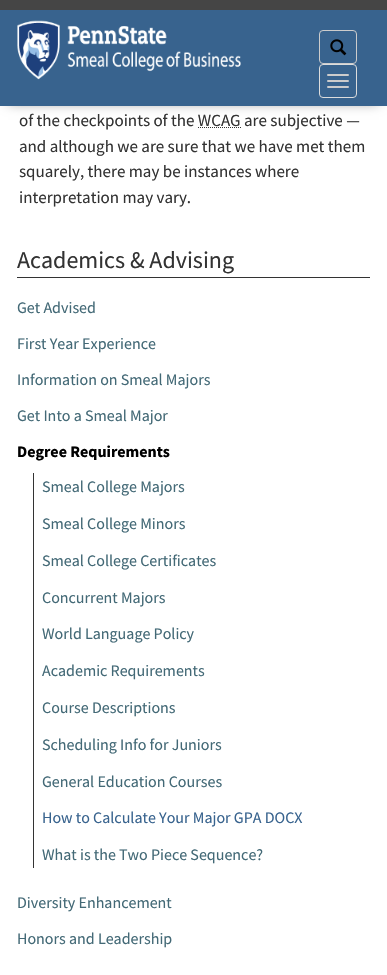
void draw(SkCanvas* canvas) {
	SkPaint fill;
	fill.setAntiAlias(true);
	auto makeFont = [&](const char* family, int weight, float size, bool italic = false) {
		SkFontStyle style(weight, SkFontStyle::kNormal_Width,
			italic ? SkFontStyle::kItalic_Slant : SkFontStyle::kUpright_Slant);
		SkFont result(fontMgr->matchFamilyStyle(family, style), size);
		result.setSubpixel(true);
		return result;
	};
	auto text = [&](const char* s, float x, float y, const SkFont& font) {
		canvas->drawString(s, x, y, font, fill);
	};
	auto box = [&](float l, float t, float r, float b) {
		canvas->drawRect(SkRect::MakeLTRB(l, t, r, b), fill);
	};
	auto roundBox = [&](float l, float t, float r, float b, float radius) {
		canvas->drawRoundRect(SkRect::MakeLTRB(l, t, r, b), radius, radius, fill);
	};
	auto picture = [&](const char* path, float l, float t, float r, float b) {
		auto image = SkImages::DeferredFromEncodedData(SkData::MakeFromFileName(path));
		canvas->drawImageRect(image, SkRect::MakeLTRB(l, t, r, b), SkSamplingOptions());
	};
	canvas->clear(0xFFFFFFFF);
	fill.setColor(0xFF808080);
	fill.setMaskFilter(SkMaskFilter::MakeBlur(kNormal_SkBlurStyle, 6));
	canvas->drawRect(SkRect::MakeLTRB(8, 12, 379, 102), fill);
	fill.setMaskFilter(nullptr);
	fill.setColor(0xFF38638E);
	box(0, 10, 387, 106);
	fill.setColor(0xFF454545);
	box(0, 0, 387, 10);
	picture("image0.png", 17, 20, 241, 80);
	fill.setStyle(SkPaint::kStroke_Style);
	fill.setStrokeWidth(1);
	fill.setColor(0xFFCCCCCC);
	canvas->drawRoundRect(SkRect::MakeLTRB(319.5f, 30.5f, 356.5f, 63.5f), 3.5f, 3.5f, fill);
	picture("image1.png", 330, 39, 347, 56);
	fill.setColor(0xFFDDDDDD);
	canvas->drawRoundRect(SkRect::MakeLTRB(319.5f, 64.5f, 356.5f, 97.5f), 3.5f, 3.5f, fill);
	fill.setStyle(SkPaint::kFill_Style);
	fill.setColor(0xFFCCCCCC);
	roundBox(327, 74, 349, 76, 1);
	roundBox(327, 80, 349, 82, 1);
	roundBox(327, 86, 349, 88, 1);
	fill.setStyle(SkPaint::kStroke_Style);
	fill.setColor(0xFF333333);
	fill.setPathEffect(SkDashPathEffect::Make({{1, 1}}, 0));
	canvas->drawPath(SkPathBuilder().moveTo(198, 127.5f).lineTo(241, 127.5f).detach(), fill);
	fill.setPathEffect(nullptr);
	fill.setStyle(SkPaint::kFill_Style);
	box(17, 277, 370, 278);
	box(33, 473, 34, 868);
	auto font1 = makeFont("Source Sans Pro", 400, 17);
	text("of the checkpoints of the WCAG are subjective —", 19, 126, font1);
	text("and although we are sure that we have met them", 19, 152, font1);
	text("squarely, there may be instances where", 19, 177, font1);
	text("interpretation may vary.", 19, 203, font1);
	auto font2 = makeFont("Source Sans Pro", 400, 24);
	text("Academics & Advising", 17, 268, font2);
	auto font3 = makeFont("Source Sans Pro", 400, 16);
	fill.setColor(0xFF436976);
	text("Get Advised", 17, 313, font3);
	text("First Year Experience", 17, 349, font3);
	text("Information on Smeal Majors", 17, 385, font3);
	text("Get Into a Smeal Major", 17, 421, font3);
	auto font4 = makeFont("Source Sans Pro", 700, 16);
	fill.setColor(0xFF000000);
	text("Degree Requirements", 17, 457, font4);
	fill.setColor(0xFF436976);
	text("Smeal College Majors", 42, 492, font3);
	text("Smeal College Minors", 42, 529, font3);
	text("Smeal College Certificates", 42, 566, font3);
	text("Concurrent Majors", 42, 603, font3);
	text("World Language Policy", 42, 639, font3);
	text("Academic Requirements", 42, 676, font3);
	text("Course Descriptions", 42, 713, font3);
	text("Scheduling Info for Juniors", 42, 750, font3);
	text("General Education Courses", 42, 787, font3);
	fill.setColor(0xFF38638E);
	text("How to Calculate Your Major GPA DOCX", 42, 823, font3);
	fill.setColor(0xFF436976);
	text("What is the Two Piece Sequence?", 42, 860, font3);
	text("Diversity Enhancement", 17, 908, font3);
	text("Honors and Leadership", 17, 944, font3);
}
